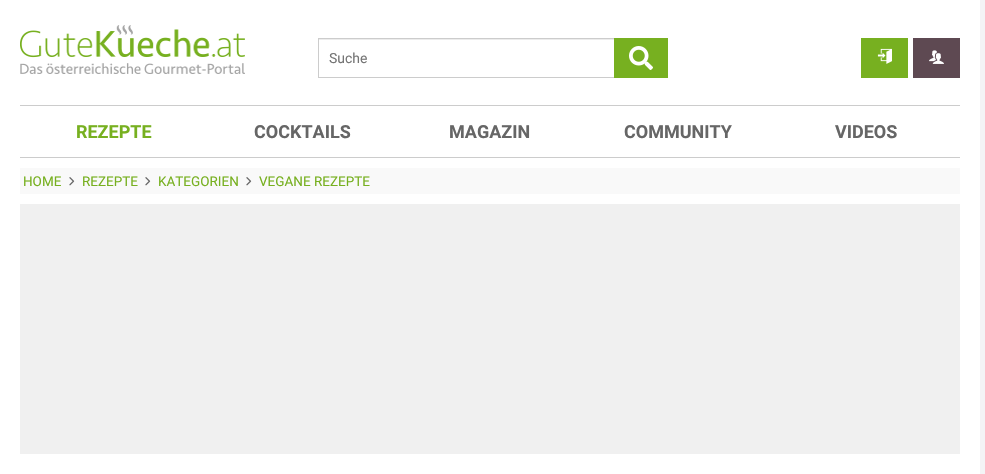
void draw(SkCanvas* canvas) {
	SkPaint fill;
	fill.setAntiAlias(true);
	auto makeFont = [&](const char* family, int weight, float size, bool italic = false) {
		SkFontStyle style(weight, SkFontStyle::kNormal_Width,
			italic ? SkFontStyle::kItalic_Slant : SkFontStyle::kUpright_Slant);
		SkFont result(fontMgr->matchFamilyStyle(family, style), size);
		result.setSubpixel(true);
		return result;
	};
	auto text = [&](const char* s, float x, float y, const SkFont& font) {
		canvas->drawString(s, x, y, font, fill);
	};
	auto box = [&](float l, float t, float r, float b) {
		canvas->drawRect(SkRect::MakeLTRB(l, t, r, b), fill);
	};
	auto picture = [&](const char* path, float l, float t, float r, float b) {
		auto image = SkImages::DeferredFromEncodedData(SkData::MakeFromFileName(path));
		canvas->drawImageRect(image, SkRect::MakeLTRB(l, t, r, b), SkSamplingOptions());
	};
	canvas->clear(0xFFF4F4F6);
	fill.setColor(0xFFFFFFFF);
	box(0, 0, 980, 474);
	picture("image0.png", 20, 25, 245, 74);
	fill.setColor(0xFFECECEC);
	box(319, 39, 614, 40);
	fill.setStyle(SkPaint::kStroke_Style);
	fill.setStrokeWidth(1);
	fill.setColor(0xFFCCCCCC);
	canvas->drawRect(SkRect::MakeLTRB(318.5f, 38.5f, 667.5f, 77.5f), fill);
	fill.setStyle(SkPaint::kFill_Style);
	fill.setColor(0xFF77B020);
	box(614, 38, 668, 78);
	picture("image1.png", 629, 46, 653, 70);
	box(861, 38, 908, 78);
	picture("image2.png", 877, 48, 892, 64);
	fill.setColor(0xFF5E4952);
	box(913, 38, 960, 78);
	picture("image3.png", 929, 50, 944, 64);
	fill.setColor(0xFFCCCCCC);
	box(20, 105, 960, 106);
	box(20, 157, 960, 158);
	fill.setColor(0xFFF9F9F9);
	box(20, 168, 960, 194);
	picture("image4.png", 69, 177, 75, 186);
	picture("image4.png", 145, 177, 151, 186);
	picture("image4.png", 246, 177, 252, 186);
	fill.setColor(0xFFF0F0F0);
	box(20, 204, 960, 454);
	auto font1 = makeFont("Roboto", 400, 14);
	fill.setColor(0xFF757575);
	text("Suche", 329, 63, font1);
	auto font2 = makeFont("Roboto", 700, 18);
	fill.setColor(0xFF77B020);
	text("REZEPTE", 76, 138, font2);
	fill.setColor(0xFF666666);
	text("COCKTAILS", 254, 138, font2);
	text("MAGAZIN", 449, 138, font2);
	text("COMMUNITY", 624, 138, font2);
	text("VIDEOS", 835, 138, font2);
	auto font3 = makeFont("Roboto", 400, 13.5f);
	fill.setColor(0xFF77B020);
	text("HOME", 23, 186, font3);
	text("REZEPTE", 82, 186, font3);
	text("KATEGORIEN", 158, 186, font3);
	text("VEGANE REZEPTE", 259, 186, font3);
}
